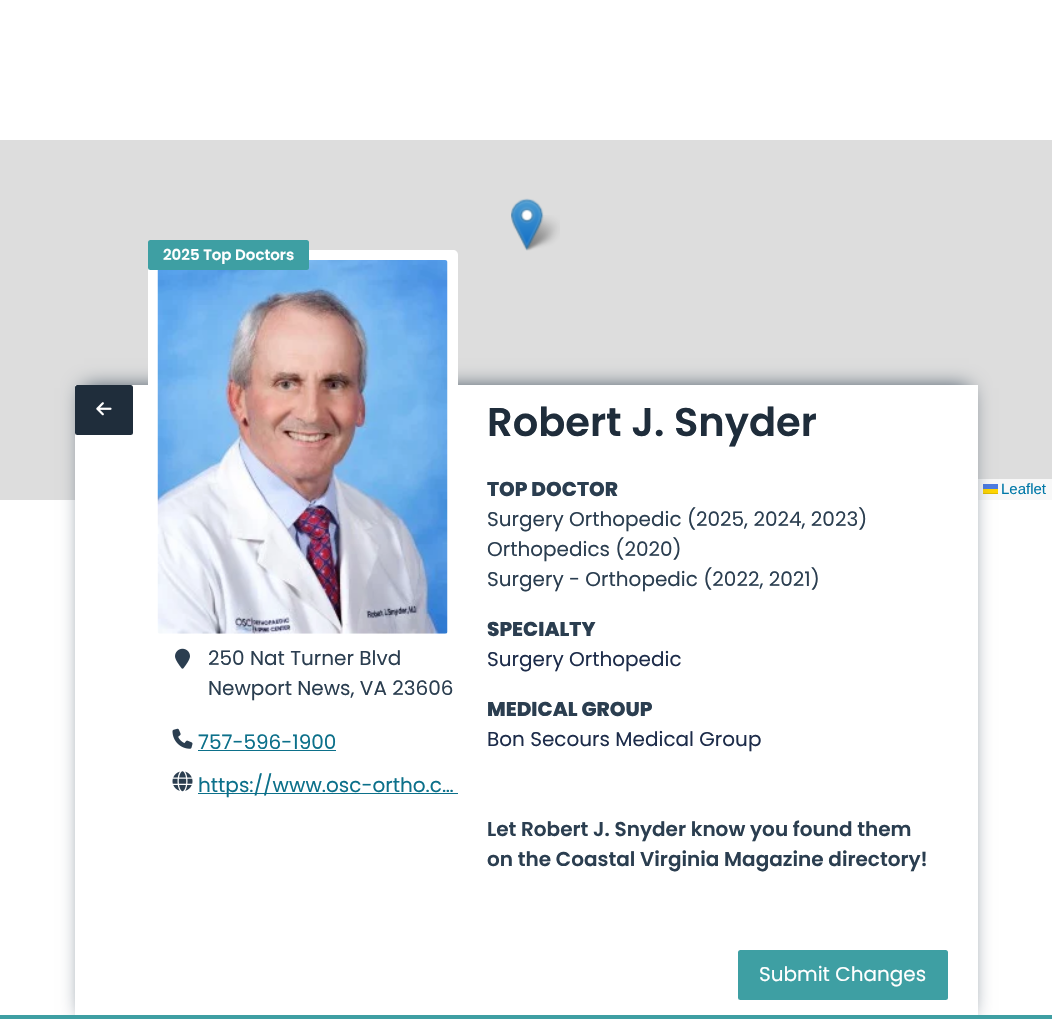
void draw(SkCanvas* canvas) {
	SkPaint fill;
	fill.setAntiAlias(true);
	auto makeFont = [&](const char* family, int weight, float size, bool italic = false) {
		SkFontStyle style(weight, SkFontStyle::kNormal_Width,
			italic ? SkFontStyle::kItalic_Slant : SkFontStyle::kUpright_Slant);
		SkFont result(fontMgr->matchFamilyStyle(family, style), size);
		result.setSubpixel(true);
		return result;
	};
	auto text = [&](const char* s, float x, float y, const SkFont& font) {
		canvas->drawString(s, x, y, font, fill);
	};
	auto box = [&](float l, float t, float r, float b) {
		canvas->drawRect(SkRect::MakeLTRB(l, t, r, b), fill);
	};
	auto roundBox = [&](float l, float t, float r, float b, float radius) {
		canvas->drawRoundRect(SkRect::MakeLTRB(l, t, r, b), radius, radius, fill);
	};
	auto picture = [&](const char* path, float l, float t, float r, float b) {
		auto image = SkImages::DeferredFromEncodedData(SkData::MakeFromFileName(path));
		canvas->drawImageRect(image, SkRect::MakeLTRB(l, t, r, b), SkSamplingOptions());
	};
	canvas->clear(0xFFFFFFFF);
	fill.setColor(0xFFDDDDDD);
	box(0, 140, 1052, 500);
	fill.setColor(0xFFF8F8F8);
	box(978, 479, 1052, 500);
	fill.setColor(0xFF4C7BE1);
	box(983, 484, 998, 489);
	fill.setColor(0xFFFFD500);
	box(983, 489, 998, 493);
	fill.setColor(0xFFE0BC00);
	box(983, 493, 998, 494);
	fill.setColor(0xFF2B3E50);
	fill.setMaskFilter(SkMaskFilter::MakeBlur(kNormal_SkBlurStyle, 10));
	canvas->drawRect(SkRect::MakeLTRB(84, 388, 969, 1015), fill);
	fill.setMaskFilter(nullptr);
	fill.setColor(0xFFFFFFFF);
	box(75, 385, 978, 1015);
	fill.setColor(0xFF1F2D3B);
	roundBox(75, 385, 133, 435, 2.5f);
	picture("image0.png", 96, 402, 112, 416);
	fill.setColor(0xFFFFFFFF);
	canvas->drawPath(SkPathBuilder().moveTo(153, 250).lineTo(453, 250).cubicTo(456, 250, 458, 252, 458, 255).lineTo(458, 644).lineTo(148, 644).lineTo(148, 255).cubicTo(148, 252, 150, 250, 153, 250).close().detach(), fill);
	picture("image1.png", 157, 260, 448, 634);
	fill.setColor(0xFF3E9FA3);
	roundBox(148, 240, 309, 270, 2.5f);
	picture("image2.png", 175, 648, 190, 669);
	picture("image3.png", 172, 728, 193, 749);
	fill.setColor(0xFF0C708A);
	box(198, 750, 336, 751);
	picture("image4.png", 172, 771, 193, 792);
	box(198, 793, 458, 794);
	fill.setColor(0xFF3E9FA3);
	roundBox(738, 950, 948, 1000, 2.5f);
	picture("image6.png", 522, 215, 560, 251);
	picture("image5.png", 511, 198, 544, 251);
	box(0, 1015, 1052, 1019);
	auto font1 = makeFont("Poppins", 600, 15);
	fill.setColor(0xFFFFFFFF);
	text("2025 Top Doctors", 163, 260, font1);
	auto font2 = makeFont("Poppins", 400, 20);
	fill.setColor(0xFF2B3E50);
	text("250 Nat Turner Blvd", 208, 665, font2);
	text("Newport News, VA 23606", 208, 695, font2);
	fill.setColor(0xFF0C708A);
	text("757-596-1900", 198, 749, font2);
	text("https://www.osc-ortho.c…", 198, 792, font2);
	auto font3 = makeFont("Poppins", 600, 40);
	fill.setColor(0xFF1F2D3B);
	text("Robert J. Snyder", 487, 436, font3);
	auto font4 = makeFont("Poppins", 800, 20);
	fill.setColor(0xFF2B3E50);
	text("TOP DOCTOR", 487, 496, font4);
	text("Surgery Orthopedic (2025, 2024, 2023)", 487, 526, font2);
	text("Orthopedics (2020)", 487, 556, font2);
	text("Surgery - Orthopedic (2022, 2021)", 487, 586, font2);
	text("SPECIALTY", 487, 636, font4);
	fill.setColor(0xFF1D2C4A);
	text("Surgery Orthopedic", 487, 666, font2);
	fill.setColor(0xFF2B3E50);
	text("MEDICAL GROUP", 487, 716, font4);
	fill.setColor(0xFF1D2C4A);
	text("Bon Secours Medical Group", 487, 746, font2);
	auto font5 = makeFont("Poppins", 600, 20);
	fill.setColor(0xFF2B3E50);
	text("Let Robert J. Snyder know you found them", 487, 836, font5);
	text("on the Coastal Virginia Magazine directory!", 487, 866, font5);
	fill.setColor(0xFFFFFFFF);
	text("Submit Changes", 759, 981, font2);
	auto font6 = makeFont("Liberation Sans", 400, 15);
	fill.setColor(0xFF0078A8);
	text("Leaflet", 1001, 494, font6);
}
